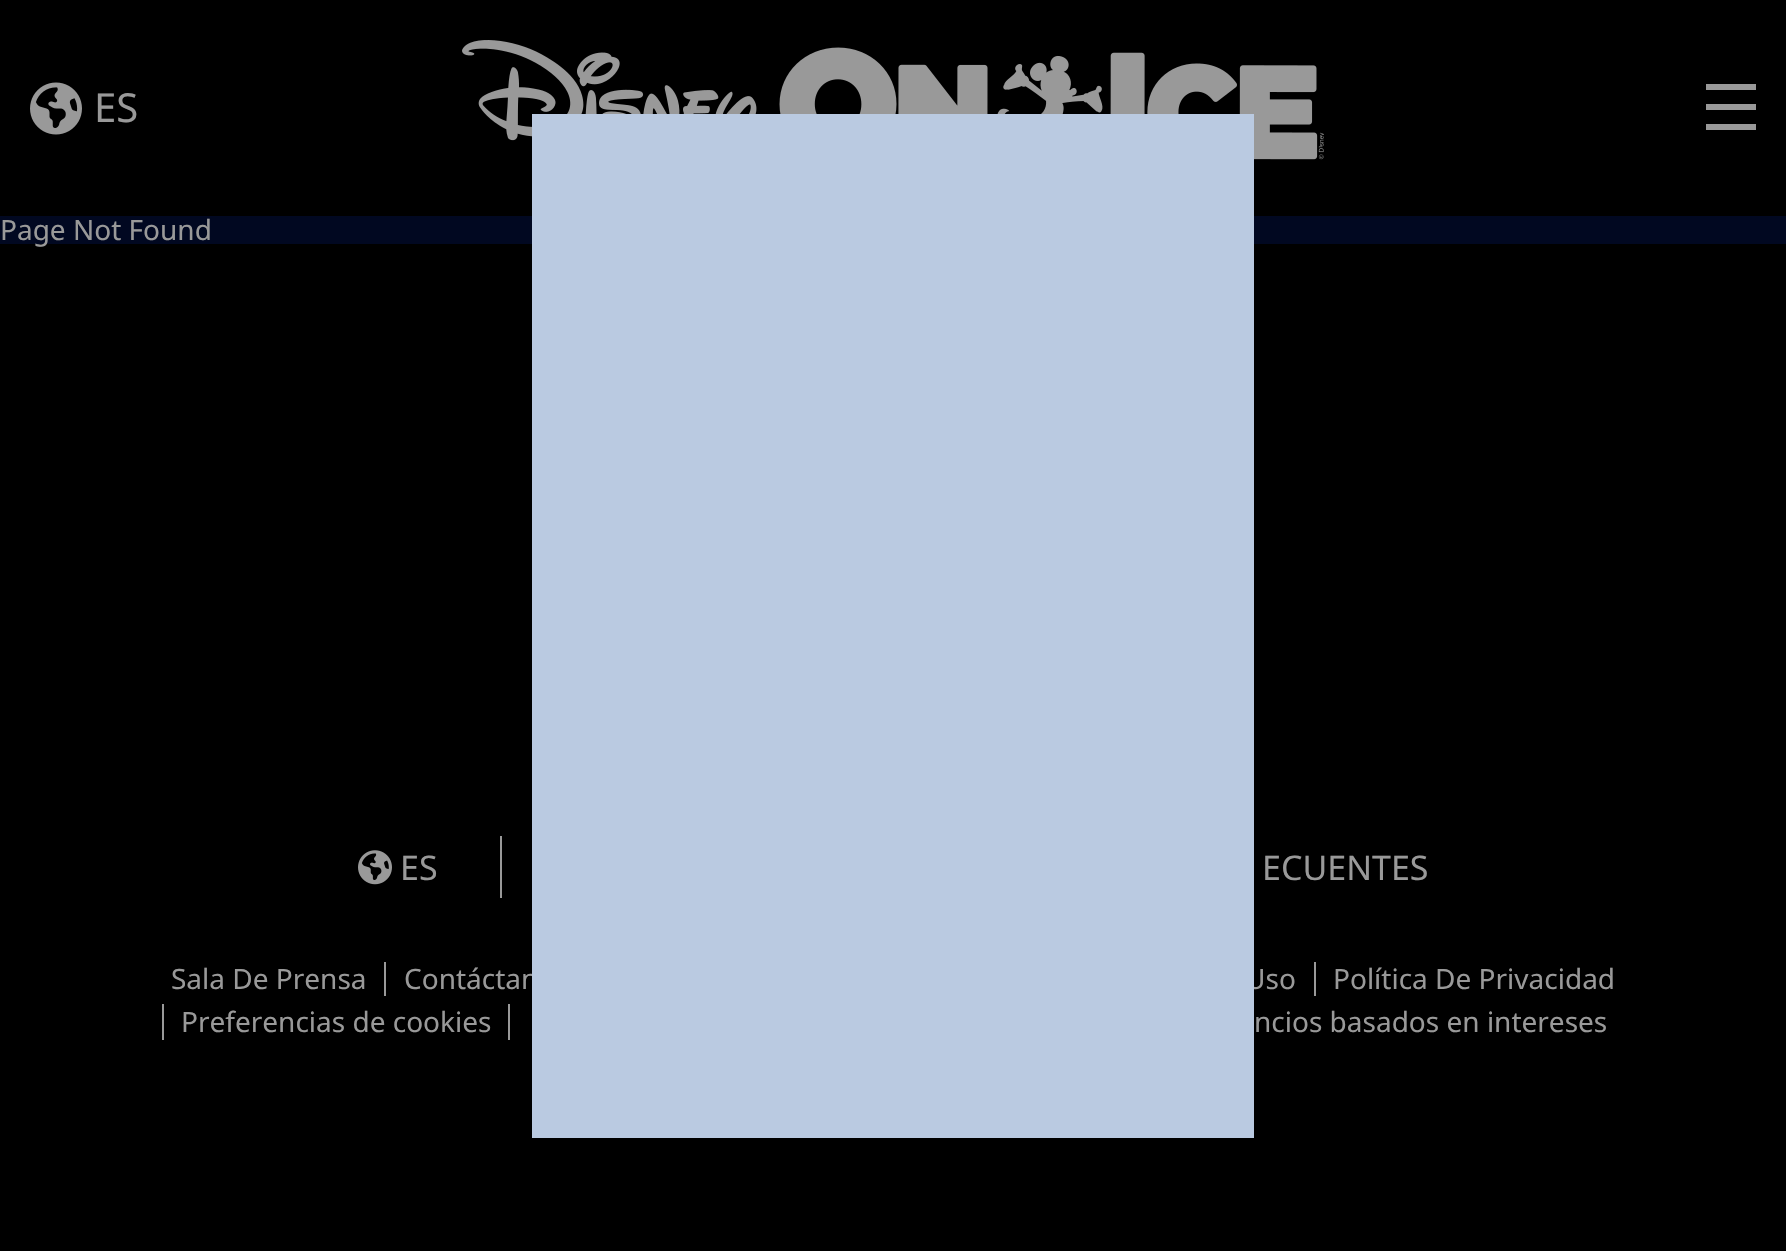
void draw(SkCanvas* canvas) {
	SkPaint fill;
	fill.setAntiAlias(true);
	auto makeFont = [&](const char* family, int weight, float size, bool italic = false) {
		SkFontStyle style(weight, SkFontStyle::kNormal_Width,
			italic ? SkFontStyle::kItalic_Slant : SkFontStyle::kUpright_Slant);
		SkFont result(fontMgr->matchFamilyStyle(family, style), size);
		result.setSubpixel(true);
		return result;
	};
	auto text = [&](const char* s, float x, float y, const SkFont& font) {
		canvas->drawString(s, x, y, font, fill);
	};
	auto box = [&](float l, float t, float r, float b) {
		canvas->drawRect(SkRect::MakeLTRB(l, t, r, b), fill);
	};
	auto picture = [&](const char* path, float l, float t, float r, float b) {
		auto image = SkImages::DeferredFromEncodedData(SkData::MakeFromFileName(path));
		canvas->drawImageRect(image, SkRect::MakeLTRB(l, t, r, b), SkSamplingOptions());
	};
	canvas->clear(0xFF000000);
	picture("image0.png", 30, 82, 82, 135);
	picture("image1.png", 462, 40, 1324, 160);
	fill.setColor(0xFF999999);
	box(1706, 124, 1756, 130);
	box(1706, 84, 1756, 90);
	box(1706, 104, 1756, 110);
	fill.setColor(0xFF010821);
	box(0, 216, 1786, 244);
	picture("image2.png", 358, 850, 392, 885);
	fill.setColor(0xFF999999);
	box(500, 836, 502, 898);
	box(384, 962, 386, 996);
	box(1314, 962, 1316, 996);
	box(162, 1004, 164, 1040);
	box(508, 1004, 510, 1040);
	auto font1 = makeFont("Noto Sans", 400, 40);
	text("ES", 94, 122, font1);
	auto font2 = makeFont("Noto Sans", 400, 28);
	text("Page Not Found", 0, 240, font2);
	auto font3 = makeFont("Noto Sans", 400, 34);
	text("ES", 400, 880, font3);
	text("ECUENTES", 1262, 880, font3);
	text("Sala De Prensa", 171, 989, font2);
	text("Contáctan", 404, 989, font2);
	text("Uso", 1245, 989, font2);
	fill.setColor(0xFFBACAE1);
	box(532, 114, 1254, 1138);
	fill.setColor(0xFF999999);
	text("Política De Privacidad", 1333, 989, font2);
	text("Preferencias de cookies", 181, 1032, font2);
	text("ncios basados en intereses", 1254, 1032, font2);
}
